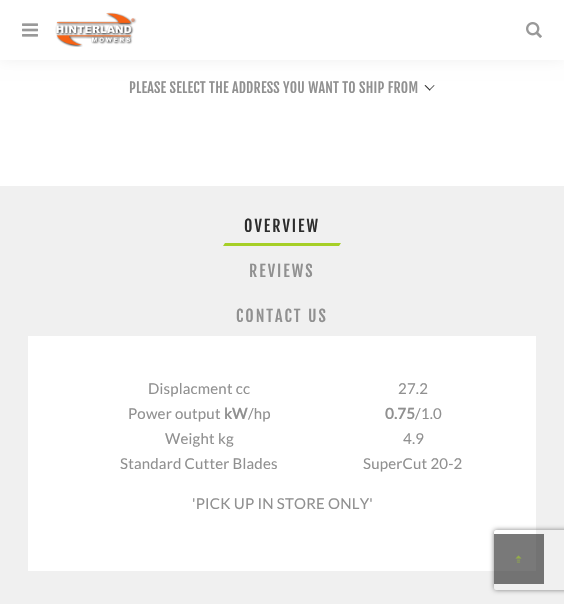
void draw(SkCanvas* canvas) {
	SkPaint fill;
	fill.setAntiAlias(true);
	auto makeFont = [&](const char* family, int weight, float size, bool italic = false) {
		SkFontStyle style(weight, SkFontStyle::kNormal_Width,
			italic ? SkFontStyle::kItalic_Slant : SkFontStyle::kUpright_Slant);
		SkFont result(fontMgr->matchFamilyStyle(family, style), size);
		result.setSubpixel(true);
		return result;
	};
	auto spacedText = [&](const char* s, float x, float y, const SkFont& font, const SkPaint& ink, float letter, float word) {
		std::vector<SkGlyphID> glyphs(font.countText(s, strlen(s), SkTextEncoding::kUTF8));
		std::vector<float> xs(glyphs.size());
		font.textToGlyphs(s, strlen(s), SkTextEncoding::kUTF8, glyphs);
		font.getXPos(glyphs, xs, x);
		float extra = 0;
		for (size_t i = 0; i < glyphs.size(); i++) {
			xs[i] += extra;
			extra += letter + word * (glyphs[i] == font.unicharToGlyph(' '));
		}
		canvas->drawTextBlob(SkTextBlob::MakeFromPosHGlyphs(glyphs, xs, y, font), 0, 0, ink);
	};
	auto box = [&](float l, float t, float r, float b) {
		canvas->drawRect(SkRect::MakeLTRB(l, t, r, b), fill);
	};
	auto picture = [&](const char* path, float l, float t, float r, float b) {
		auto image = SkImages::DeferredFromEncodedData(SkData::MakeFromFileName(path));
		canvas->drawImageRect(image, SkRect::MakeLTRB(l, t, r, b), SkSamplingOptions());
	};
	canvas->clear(0xFFF0F0F0);
	fill.setColor(0xFFFFFFFF);
	box(0, 60, 564, 186);
	fill.setColor(0x0F000000);
	fill.setMaskFilter(SkMaskFilter::MakeBlur(kNormal_SkBlurStyle, 7));
	canvas->drawRect(SkRect::MakeLTRB(0, 0, 564, 60), fill);
	fill.setMaskFilter(nullptr);
	fill.setColor(0xFFFFFFFF);
	box(0, 0, 564, 60);
	picture("image0.png", 22, 23, 38, 37);
	picture("image1.png", 55, 12, 137, 47);
	picture("image2.png", 526, 22, 542, 38);
	fill.setColor(0xFF2C2C2C);
	canvas->drawPath(SkPathBuilder().moveTo(434, 85).lineTo(434.5f, 85.5f).lineTo(429.5f, 90.5f).lineTo(429, 90).close().detach(), fill);
	canvas->drawPath(SkPathBuilder().moveTo(425.5f, 85).lineTo(430.5f, 90).lineTo(429.5f, 90.5f).lineTo(424.5f, 85.5f).close().detach(), fill);
	fill.setColor(0xFFA6CF27);
	canvas->drawPath(SkPathBuilder().moveTo(225, 243).lineTo(341, 243).lineTo(339, 246).lineTo(223, 246).close().detach(), fill);
	fill.setColor(0xFFFFFFFF);
	box(28, 336, 536, 571);
	canvas->save();
	canvas->clipPath(SkPathBuilder(SkPathFillType::kEvenOdd).moveTo(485, 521).lineTo(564, 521).lineTo(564, 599).lineTo(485, 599).close().moveTo(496, 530).lineTo(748, 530).cubicTo(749, 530, 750, 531, 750, 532).lineTo(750, 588).cubicTo(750, 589, 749, 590, 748, 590).lineTo(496, 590).cubicTo(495, 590, 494, 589, 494, 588).lineTo(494, 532).cubicTo(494, 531, 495, 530, 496, 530).close().detach(), true);
	fill.setColor(0xFF808080);
	fill.setMaskFilter(SkMaskFilter::MakeBlur(kNormal_SkBlurStyle, 2.5f));
	canvas->drawRoundRect(SkRect::MakeLTRB(494, 530, 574, 590), 2, 2, fill);
	fill.setMaskFilter(nullptr);
	canvas->restore();
	fill.setColor(0x991F1F1F);
	box(494, 534, 544, 584);
	picture("image3.png", 515, 555, 522, 563);
	auto font1 = makeFont("Fjalla One", 400, 14);
	fill.setColor(0xFF909090);
	spacedText("PLEASE SELECT THE ADDRESS YOU WANT TO SHIP FROM", 129, 93, font1, fill, 0.2f, 0);
	auto font2 = makeFont("Fjalla One", 400, 16);
	fill.setColor(0xFF2C2C2C);
	spacedText("OVERVIEW", 244, 232, font2, fill, 2, 0);
	fill.setColor(0xFF909090);
	spacedText("REVIEWS", 249, 277, font2, fill, 2, 0);
	spacedText("CONTACT US", 236, 322, font2, fill, 2, 0);
	auto font3 = makeFont("Lato", 400, 15);
	spacedText("Displacment cc", 148, 394, font3, fill, 0.2f, 0);
	spacedText("27.2", 398, 394, font3, fill, 0.2f, 0);
	spacedText("Power output", 128, 419, font3, fill, 0.2f, 0);
	auto font4 = makeFont("Lato", 700, 15);
	spacedText("kW", 224, 419, font4, fill, 0.2f, 0);
	spacedText("/hp", 248, 419, font3, fill, 0.2f, 0);
	spacedText("0.75", 385, 419, font4, fill, 0.2f, 0);
	spacedText("/1.0", 415, 419, font3, fill, 0.2f, 0);
	spacedText("Weight kg", 165, 444, font3, fill, 0.2f, 0);
	spacedText("4.9", 403, 444, font3, fill, 0.2f, 0);
	spacedText("Standard Cutter Blades", 120, 469, font3, fill, 0.2f, 0);
	spacedText("SuperCut 20-2", 363, 469, font3, fill, 0.2f, 0);
	spacedText("'PICK UP IN STORE ONLY'", 192, 509, font3, fill, 0.2f, 0);
}
